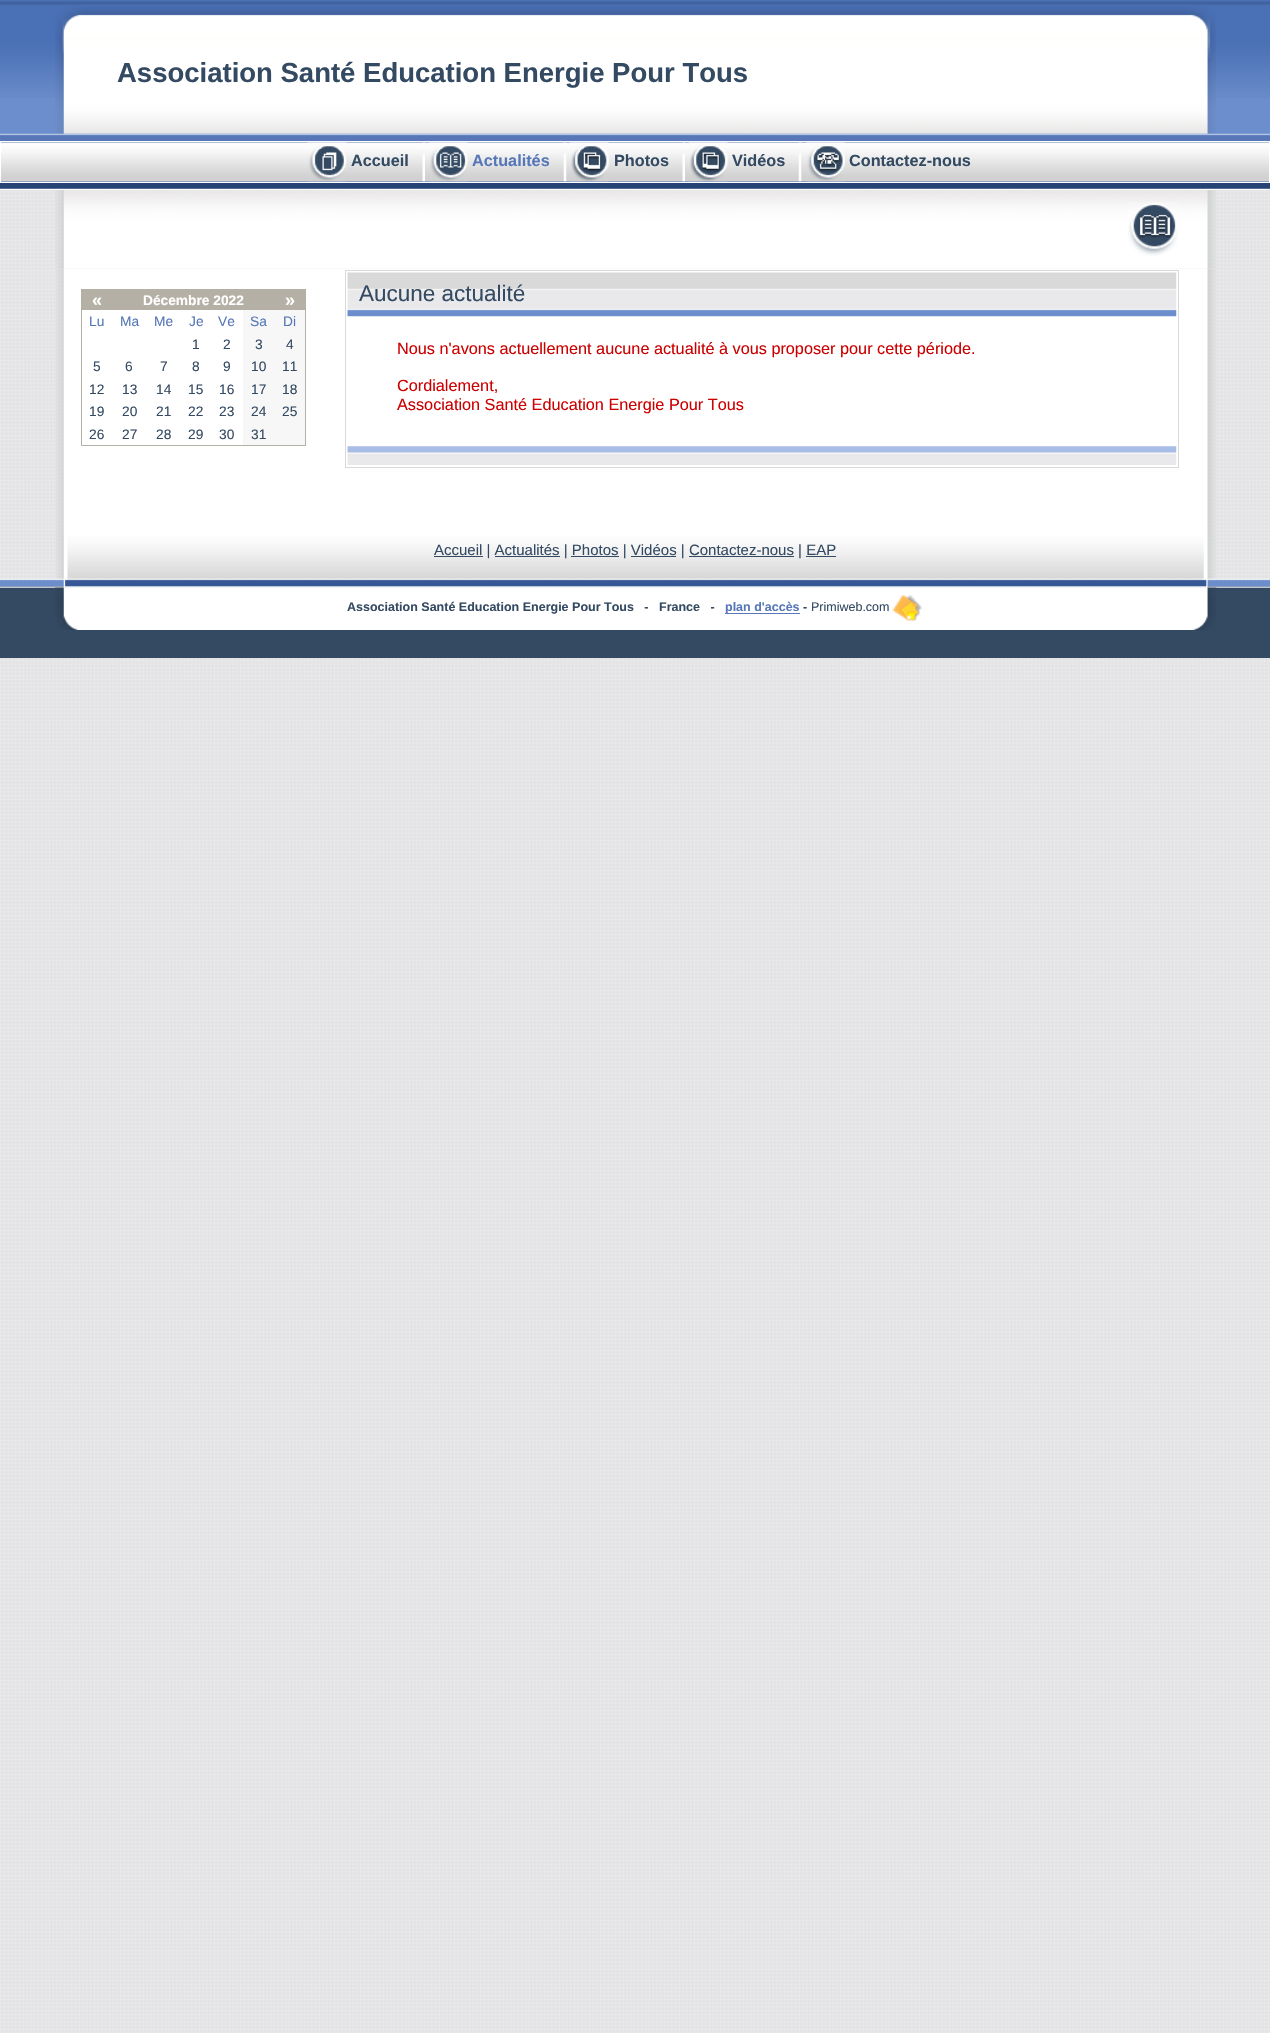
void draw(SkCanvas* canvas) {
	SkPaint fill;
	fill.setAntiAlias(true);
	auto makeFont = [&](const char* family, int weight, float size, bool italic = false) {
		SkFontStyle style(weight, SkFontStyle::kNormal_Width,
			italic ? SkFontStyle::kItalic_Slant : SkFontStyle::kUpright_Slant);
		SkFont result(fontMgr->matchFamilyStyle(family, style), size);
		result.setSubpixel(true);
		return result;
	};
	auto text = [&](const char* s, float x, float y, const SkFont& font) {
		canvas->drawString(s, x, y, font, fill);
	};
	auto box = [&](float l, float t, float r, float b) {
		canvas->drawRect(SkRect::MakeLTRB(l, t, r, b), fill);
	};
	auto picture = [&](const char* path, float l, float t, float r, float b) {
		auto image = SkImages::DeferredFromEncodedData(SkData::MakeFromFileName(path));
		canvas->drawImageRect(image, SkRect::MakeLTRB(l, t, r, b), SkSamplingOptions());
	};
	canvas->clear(0xFFFFFFFF);
	picture("image0.png", 0, 188, 1270, 2033);
	fill.setColor(0xFF6D8ECC);
	box(0, 98, 1270, 134);
	picture("image1.png", 0, 0, 1270, 98);
	picture("image2.png", 55, 6, 1216, 134);
	picture("image3.png", 0, 133, 1270, 189);
	fill.setColor(0xFFFFFFFF);
	box(0, 189, 1270, 190);
	picture("image4.png", 1, 142, 1269, 182);
	fill.setStyle(SkPaint::kStroke_Style);
	fill.setStrokeWidth(1);
	canvas->drawRect(SkRect::MakeLTRB(0.5f, 141.5f, 1269.5f, 182.5f), fill);
	picture("image5.png", 307, 142, 347, 182);
	picture("image6.png", 422, 142, 425, 182);
	picture("image7.png", 428, 142, 468, 182);
	picture("image8.png", 563, 142, 567, 182);
	picture("image9.png", 570, 142, 609, 182);
	picture("image6.png", 682, 142, 685, 182);
	picture("image10.png", 688, 142, 728, 182);
	picture("image8.png", 798, 142, 802, 182);
	picture("image11.png", 806, 142, 845, 182);
	picture("image12.png", 55, 190, 1216, 269);
	picture("image13.png", 1128, 202, 1178, 256);
	picture("image14.png", 56, 269, 1216, 535);
	fill.setStyle(SkPaint::kFill_Style);
	fill.setColor(0xFFB4B0A5);
	box(81, 289, 306, 290);
	box(305, 289, 306, 446);
	box(81, 445, 306, 446);
	box(81, 289, 82, 446);
	box(82, 290, 305, 310);
	fill.setColor(0xFFF7F7F7);
	box(243, 310, 305, 333);
	box(243, 333, 305, 355);
	box(243, 355, 305, 378);
	box(243, 378, 305, 400);
	box(243, 400, 305, 423);
	box(243, 423, 305, 445);
	fill.setStyle(SkPaint::kStroke_Style);
	fill.setColor(0xFFD9D9DA);
	canvas->drawRect(SkRect::MakeLTRB(345.5f, 270.5f, 1178.5f, 467.5f), fill);
	picture("image15.png", 347, 272, 1177, 317);
	picture("image16.png", 347, 446, 1177, 465);
	picture("image17.png", 56, 535, 1216, 579);
	fill.setStyle(SkPaint::kFill_Style);
	fill.setColor(0xFF344A62);
	box(434, 556, 483, 557);
	box(495, 556, 560, 557);
	box(571, 556, 619, 557);
	box(631, 556, 676, 557);
	box(689, 556, 794, 557);
	box(806, 556, 836, 557);
	picture("image18.png", 0, 578, 1270, 588);
	box(0, 588, 1270, 658);
	picture("image20.png", 55, 587, 1217, 630);
	picture("image19.png", 55, 578, 1216, 588);
	fill.setColor(0xFF5777B8);
	box(725, 613, 800, 614);
	picture("image21.png", 892, 594, 923, 622);
	auto font1 = makeFont("Liberation Sans", 700, 27.5f);
	fill.setColor(0xFF344A62);
	text("Association Santé Education Energie Pour Tous", 117, 82, font1);
	auto font2 = makeFont("Liberation Sans", 700, 16.25f);
	text("Accueil", 351, 166, font2);
	fill.setColor(0xFF5777B8);
	text("Actualités", 472, 166, font2);
	fill.setColor(0xFF344A62);
	text("Photos", 614, 166, font2);
	text("Vidéos", 732, 166, font2);
	text("Contactez-nous", 849, 166, font2);
	auto font3 = makeFont("Liberation Sans", 700, 18);
	fill.setColor(0xFFFFFFFF);
	text("«", 92, 306, font3);
	auto font4 = makeFont("Liberation Sans", 700, 13.75f);
	text("Décembre 2022", 143, 305, font4);
	text("»", 285, 306, font3);
	auto font5 = makeFont("Liberation Sans", 400, 13.75f);
	fill.setColor(0xFF5777B8);
	text("Lu", 89, 326, font5);
	text("Ma", 120, 326, font5);
	text("Me", 154, 326, font5);
	text("Je", 189, 326, font5);
	text("Ve", 218, 326, font5);
	text("Sa", 250, 326, font5);
	text("Di", 283, 326, font5);
	fill.setColor(0xFF344A62);
	text("1", 192, 349, font5);
	text("2", 223, 349, font5);
	text("3", 255, 349, font5);
	text("4", 286, 349, font5);
	text("5", 93, 371, font5);
	text("6", 125, 371, font5);
	text("7", 160, 371, font5);
	text("8", 192, 371, font5);
	text("9", 223, 371, font5);
	text("10", 251, 371, font5);
	text("11", 282, 371, font5);
	text("12", 89, 394, font5);
	text("13", 122, 394, font5);
	text("14", 156, 394, font5);
	text("15", 188, 394, font5);
	text("16", 219, 394, font5);
	text("17", 251, 394, font5);
	text("18", 282, 394, font5);
	text("19", 89, 416, font5);
	text("20", 122, 416, font5);
	text("21", 156, 416, font5);
	text("22", 188, 416, font5);
	text("23", 219, 416, font5);
	text("24", 251, 416, font5);
	text("25", 282, 416, font5);
	text("26", 89, 439, font5);
	text("27", 122, 439, font5);
	text("28", 156, 439, font5);
	text("29", 188, 439, font5);
	text("30", 219, 439, font5);
	text("31", 251, 439, font5);
	auto font6 = makeFont("Liberation Sans", 400, 22.5f);
	text("Aucune actualité", 359, 301, font6);
	auto font7 = makeFont("Liberation Sans", 400, 16.25f);
	fill.setColor(0xFFCC0000);
	text("Nous n'avons actuellement aucune actualité à vous proposer pour cette période.", 397, 354, font7);
	text("Cordialement,", 397, 391, font7);
	text("Association Santé Education Energie Pour Tous", 397, 410, font7);
	auto font8 = makeFont("Liberation Sans", 400, 15);
	fill.setColor(0xFF344A62);
	text("Accueil | Actualités | Photos | Vidéos | Contactez-nous | EAP", 434, 555, font8);
	auto font9 = makeFont("Liberation Sans", 700, 12.5f);
	text("Association Santé Education Energie Pour Tous   -", 347, 611, font9);
	text("France   -", 659, 611, font9);
	fill.setColor(0xFF5777B8);
	text("plan d'accès", 725, 611, font9);
	fill.setColor(0xFF344A62);
	text("-", 803, 611, font9);
	auto font10 = makeFont("Liberation Sans", 400, 12.5f);
	text("Primiweb.com", 811, 611, font10);
}
